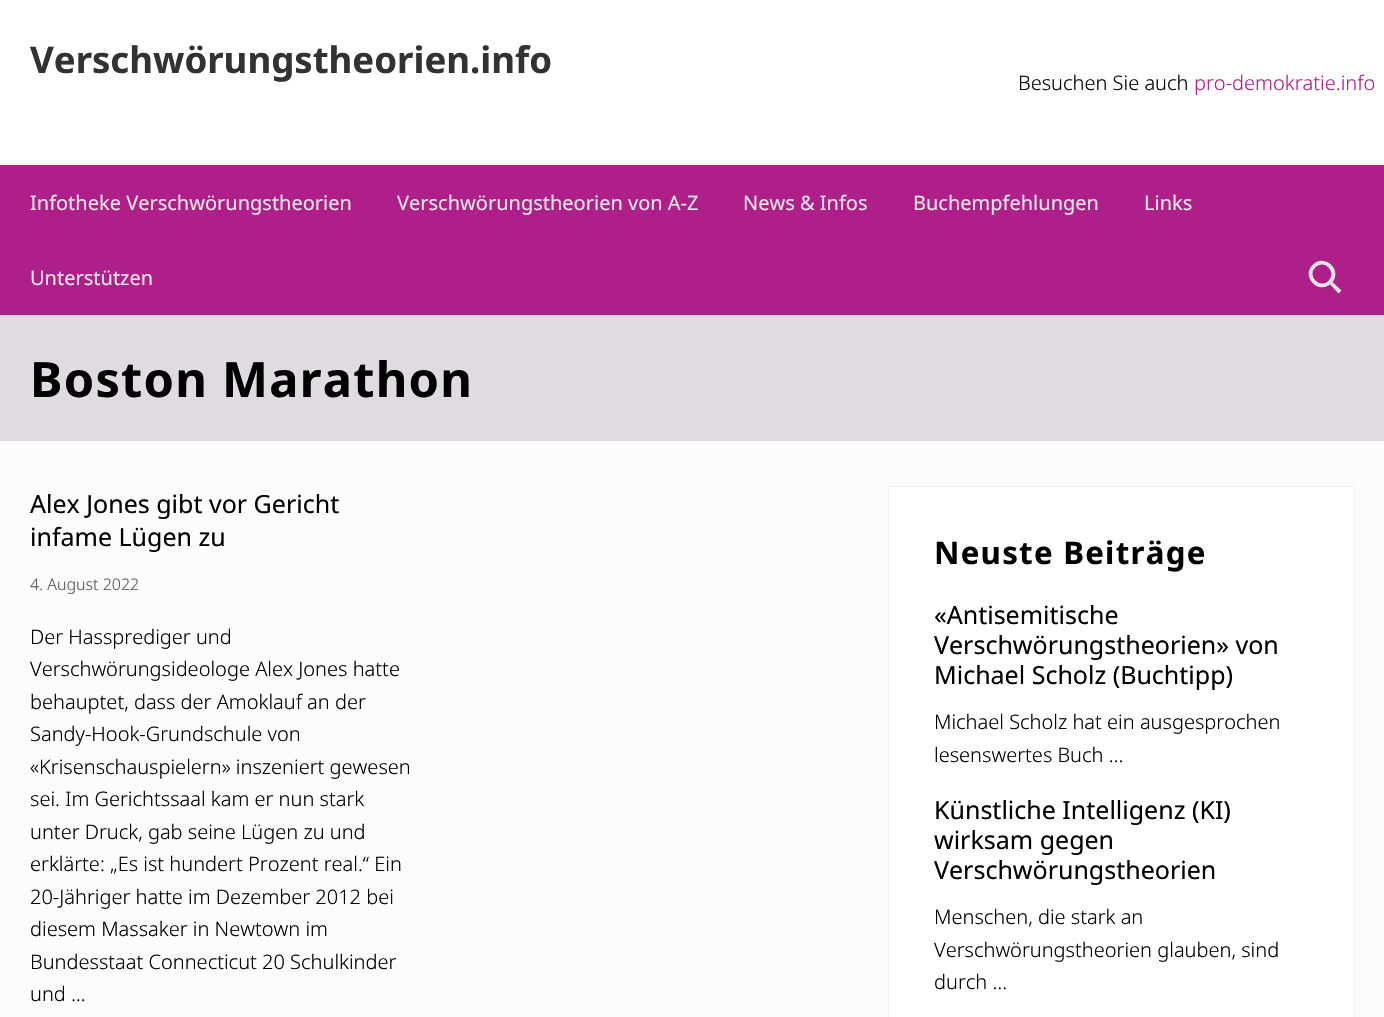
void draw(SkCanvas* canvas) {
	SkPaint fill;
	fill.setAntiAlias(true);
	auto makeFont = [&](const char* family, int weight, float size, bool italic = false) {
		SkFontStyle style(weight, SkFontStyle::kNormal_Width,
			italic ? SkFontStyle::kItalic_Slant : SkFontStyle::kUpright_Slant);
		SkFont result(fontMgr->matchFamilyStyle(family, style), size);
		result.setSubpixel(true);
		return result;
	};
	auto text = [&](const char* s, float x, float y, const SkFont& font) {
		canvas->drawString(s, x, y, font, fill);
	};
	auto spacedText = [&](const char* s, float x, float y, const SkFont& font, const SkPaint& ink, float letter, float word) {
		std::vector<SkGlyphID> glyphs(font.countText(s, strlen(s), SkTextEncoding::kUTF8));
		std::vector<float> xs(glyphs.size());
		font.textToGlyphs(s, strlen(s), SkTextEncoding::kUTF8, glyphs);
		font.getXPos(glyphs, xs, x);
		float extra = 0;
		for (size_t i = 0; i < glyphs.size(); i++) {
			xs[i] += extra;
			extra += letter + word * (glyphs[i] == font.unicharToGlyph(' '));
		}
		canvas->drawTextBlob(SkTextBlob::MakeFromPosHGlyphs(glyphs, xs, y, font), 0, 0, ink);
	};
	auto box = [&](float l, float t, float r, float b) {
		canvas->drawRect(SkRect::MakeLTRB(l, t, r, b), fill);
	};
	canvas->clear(0xFFFCFCFC);
	fill.setColor(0xFFFFFFFF);
	box(0, 0, 1384, 165);
	fill.setColor(0xFFAF1F89);
	box(0, 165, 1384, 315);
	fill.setStyle(SkPaint::kStroke_Style);
	fill.setStrokeWidth(3.8f);
	fill.setColor(0xFFE4E4E4);
	canvas->drawPath(SkPathBuilder().moveTo(1314, 266).cubicTo(1324.5f, 255.5f, 1340.5f, 271.5f, 1330, 282).cubicTo(1319.5f, 292.5f, 1303.5f, 276.5f, 1314, 266).close().detach(), fill);
	fill.setStyle(SkPaint::kFill_Style);
	canvas->drawPath(SkPathBuilder().moveTo(1330, 284.5f).lineTo(1332.5f, 282).lineTo(1341.5f, 290.5f).lineTo(1338.5f, 293.5f).close().detach(), fill);
	fill.setColor(0xFFDFDBE1);
	box(0, 315, 1384, 441);
	fill.setColor(0xFFFFFFFF);
	canvas->drawRect(SkRect::MakeLTRB(888.5f, 486.5f, 1354.5f, 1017.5f), fill);
	fill.setStyle(SkPaint::kStroke_Style);
	fill.setStrokeWidth(1);
	fill.setColor(0xFFF0F0F0);
	canvas->drawRect(SkRect::MakeLTRB(888.5f, 486.5f, 1354.5f, 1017.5f), fill);
	auto font1 = makeFont("Noto Sans", 700, 36.6f);
	fill.setStyle(SkPaint::kFill_Style);
	fill.setColor(0xFF323232);
	text("Verschwörungstheorien.info", 30, 73, font1);
	auto font2 = makeFont("Noto Sans", 300, 20);
	fill.setColor(0xFF000000);
	text("Besuchen Sie auch", 1018, 90, font2);
	fill.setColor(0xFFAF1F89);
	text("pro-demokratie.info", 1194, 90, font2);
	auto font3 = makeFont("Noto Sans", 400, 20);
	fill.setColor(0xFFE4E4E4);
	text("Infotheke Verschwörungstheorien", 30, 210, font3);
	text("Verschwörungstheorien von A-Z", 397, 210, font3);
	text("News & Infos", 743, 210, font3);
	text("Buchempfehlungen", 913, 210, font3);
	text("Links", 1144, 210, font3);
	text("Unterstützen", 30, 285, font3);
	auto font4 = makeFont("Noto Sans", 700, 48.75f);
	fill.setColor(0xFF000000);
	spacedText("Boston Marathon", 30, 397, font4, fill, 1.25f, 0);
	auto font5 = makeFont("Noto Sans", 400, 25);
	text("Alex Jones gibt vor Gericht", 30, 513, font5);
	text("infame Lügen zu", 30, 546, font5);
	auto font6 = makeFont("Noto Sans", 300, 16);
	fill.setColor(0xFF555555);
	text("4. August 2022", 30, 590, font6);
	fill.setColor(0xFF000000);
	text("Der Hassprediger und", 30, 644, font2);
	text("Verschwörungsideologe Alex Jones hatte", 30, 676, font2);
	text("behauptet, dass der Amoklauf an der", 30, 709, font2);
	text("Sandy-Hook-Grundschule von", 30, 741, font2);
	text("«Krisenschauspielern» inszeniert gewesen", 30, 774, font2);
	text("sei. Im Gerichtssaal kam er nun stark", 30, 806, font2);
	text("unter Druck, gab seine Lügen zu und", 30, 839, font2);
	text("erklärte: „Es ist hundert Prozent real.“ Ein", 30, 871, font2);
	text("20-Jähriger hatte im Dezember 2012 bei", 30, 904, font2);
	text("diesem Massaker in Newtown im", 30, 936, font2);
	text("Bundesstaat Connecticut 20 Schulkinder", 30, 969, font2);
	text("und …", 30, 1001, font2);
	auto font7 = makeFont("Noto Sans", 700, 31.25f);
	spacedText("Neuste Beiträge", 934, 564, font7, fill, 1.25f, 0);
	text("«Antisemitische", 934, 624, font5);
	text("Verschwörungstheorien» von", 934, 654, font5);
	text("Michael Scholz (Buchtipp)", 934, 684, font5);
	text("Michael Scholz hat ein ausgesprochen", 934, 729, font2);
	text("lesenswertes Buch …", 934, 762, font2);
	text("Künstliche Intelligenz (KI)", 934, 819, font5);
	text("wirksam gegen", 934, 849, font5);
	text("Verschwörungstheorien", 934, 879, font5);
	text("Menschen, die stark an", 934, 924, font2);
	text("Verschwörungstheorien glauben, sind", 934, 957, font2);
	text("durch …", 934, 989, font2);
}
